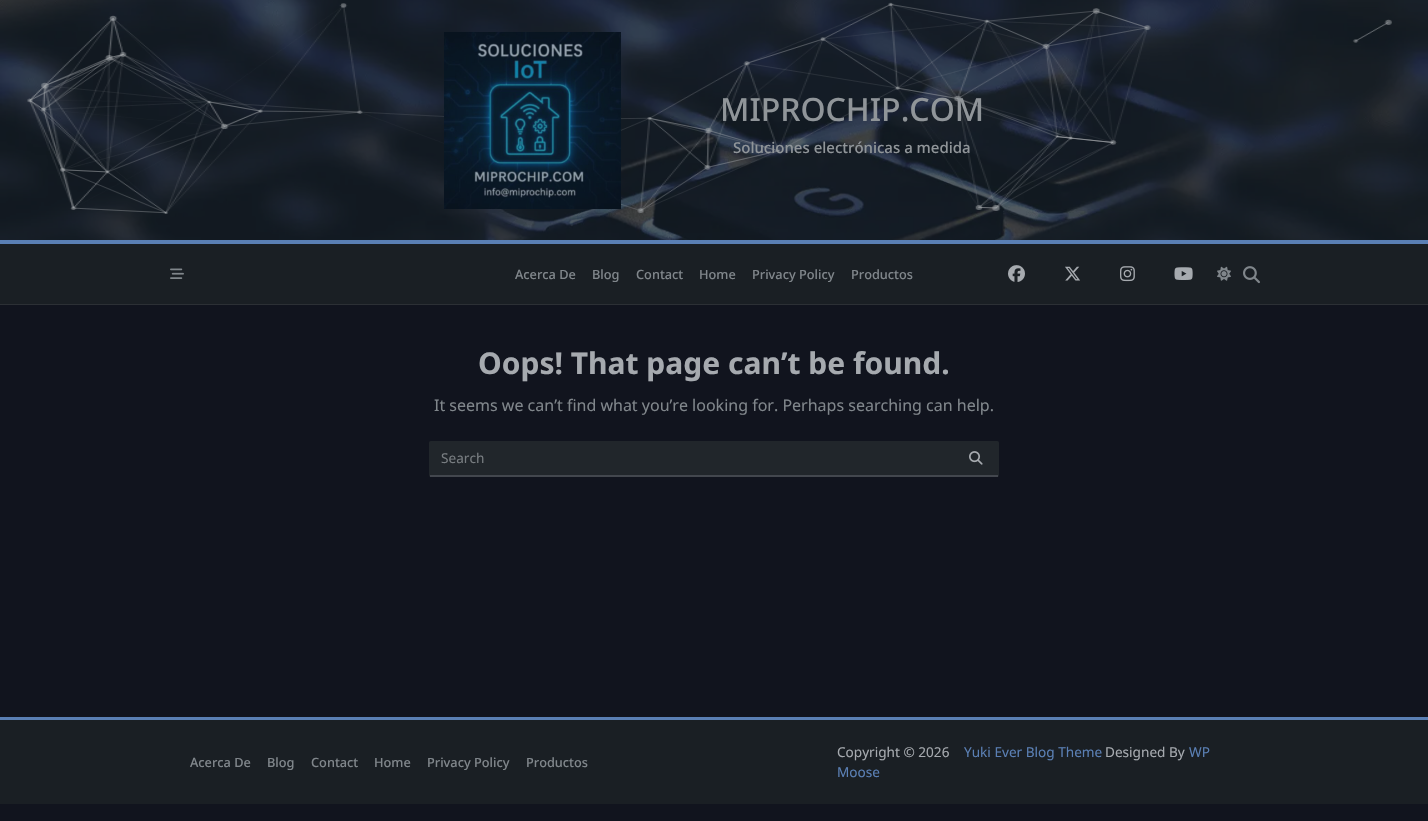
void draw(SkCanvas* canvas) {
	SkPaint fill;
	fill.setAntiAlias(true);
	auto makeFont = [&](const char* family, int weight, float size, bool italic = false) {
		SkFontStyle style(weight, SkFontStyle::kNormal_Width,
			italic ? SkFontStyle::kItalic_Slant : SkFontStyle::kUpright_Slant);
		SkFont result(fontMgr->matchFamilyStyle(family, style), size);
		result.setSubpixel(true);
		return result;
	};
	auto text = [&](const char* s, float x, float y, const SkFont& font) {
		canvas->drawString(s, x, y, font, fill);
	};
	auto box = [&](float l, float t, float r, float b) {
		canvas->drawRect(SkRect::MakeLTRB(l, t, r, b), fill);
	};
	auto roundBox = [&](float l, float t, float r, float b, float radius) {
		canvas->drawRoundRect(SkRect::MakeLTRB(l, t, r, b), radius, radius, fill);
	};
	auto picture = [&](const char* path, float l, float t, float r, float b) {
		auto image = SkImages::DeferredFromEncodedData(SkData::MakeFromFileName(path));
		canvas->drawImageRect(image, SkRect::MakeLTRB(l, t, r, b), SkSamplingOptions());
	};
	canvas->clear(0xFF11141E);
	picture("image0.png", 0, 0, 1428, 240);
	picture("image1.png", 27, 2, 1392, 214);
	picture("image2.png", 444, 32, 621, 209);
	fill.setColor(0xFF1A1F24);
	box(0, 244, 1428, 304);
	fill.setColor(0xFF5A7FB4);
	box(0, 240, 1428, 244);
	fill.setColor(0xFF2C3035);
	box(0, 304, 1428, 305);
	picture("image3.png", 170, 268, 184, 279);
	picture("image4.png", 1008, 265, 1025, 282);
	picture("image5.png", 1065, 266, 1080, 281);
	picture("image6.png", 1120, 266, 1135, 282);
	picture("image7.png", 1174, 267, 1193, 280);
	picture("image8.png", 1217, 266, 1231, 281);
	picture("image9.png", 1243, 266, 1260, 284);
	fill.setColor(0xFF21262B);
	roundBox(429, 441, 999, 477, 2);
	fill.setColor(0xFF43474E);
	box(430, 475, 998, 477);
	picture("image10.png", 969, 451, 983, 465);
	fill.setColor(0xFF1A1F24);
	box(0, 720, 1428, 804);
	fill.setColor(0xFF5A7FB4);
	box(0, 717, 1428, 720);
	auto font1 = makeFont("Noto Sans", 500, 32);
	fill.setColor(0xFF909599);
	text("MIPROCHIP.COM", 720, 121, font1);
	auto font2 = makeFont("Noto Sans", 500, 15);
	text("Soluciones electrónicas a medida", 733, 153, font2);
	auto font3 = makeFont("Noto Sans", 500, 12.75f);
	fill.setColor(0xFF80868B);
	text("Acerca De", 515, 279, font3);
	text("Blog", 592, 279, font3);
	text("Contact", 636, 279, font3);
	text("Home", 699, 279, font3);
	text("Privacy Policy", 752, 279, font3);
	text("Productos", 851, 279, font3);
	auto font4 = makeFont("Noto Sans", 700, 30);
	fill.setColor(0xFFA6AAAF);
	text("Oops! That page can’t be found.", 478, 374, font4);
	auto font5 = makeFont("Noto Sans", 400, 16);
	fill.setColor(0xFF80868B);
	text("It seems we can’t find what you’re looking for. Perhaps searching can help.", 434, 411, font5);
	auto font6 = makeFont("Noto Sans", 400, 13.6f);
	fill.setColor(0xFF777C80);
	text("Search", 441, 463, font6);
	fill.setColor(0xFF80868B);
	text("Acerca De", 190, 767, font3);
	text("Blog", 267, 767, font3);
	text("Contact", 311, 767, font3);
	text("Home", 374, 767, font3);
	text("Privacy Policy", 427, 767, font3);
	text("Productos", 526, 767, font3);
	fill.setColor(0xFFA6AAAF);
	text("Copyright © 2026", 837, 757, font6);
	fill.setColor(0xFF5A7FB4);
	text("Yuki Ever Blog Theme", 964, 757, font6);
	fill.setColor(0xFFA6AAAF);
	text("Designed By", 1105, 757, font6);
	fill.setColor(0xFF5A7FB4);
	text("WP", 1189, 757, font6);
	text("Moose", 837, 777, font6);
}
